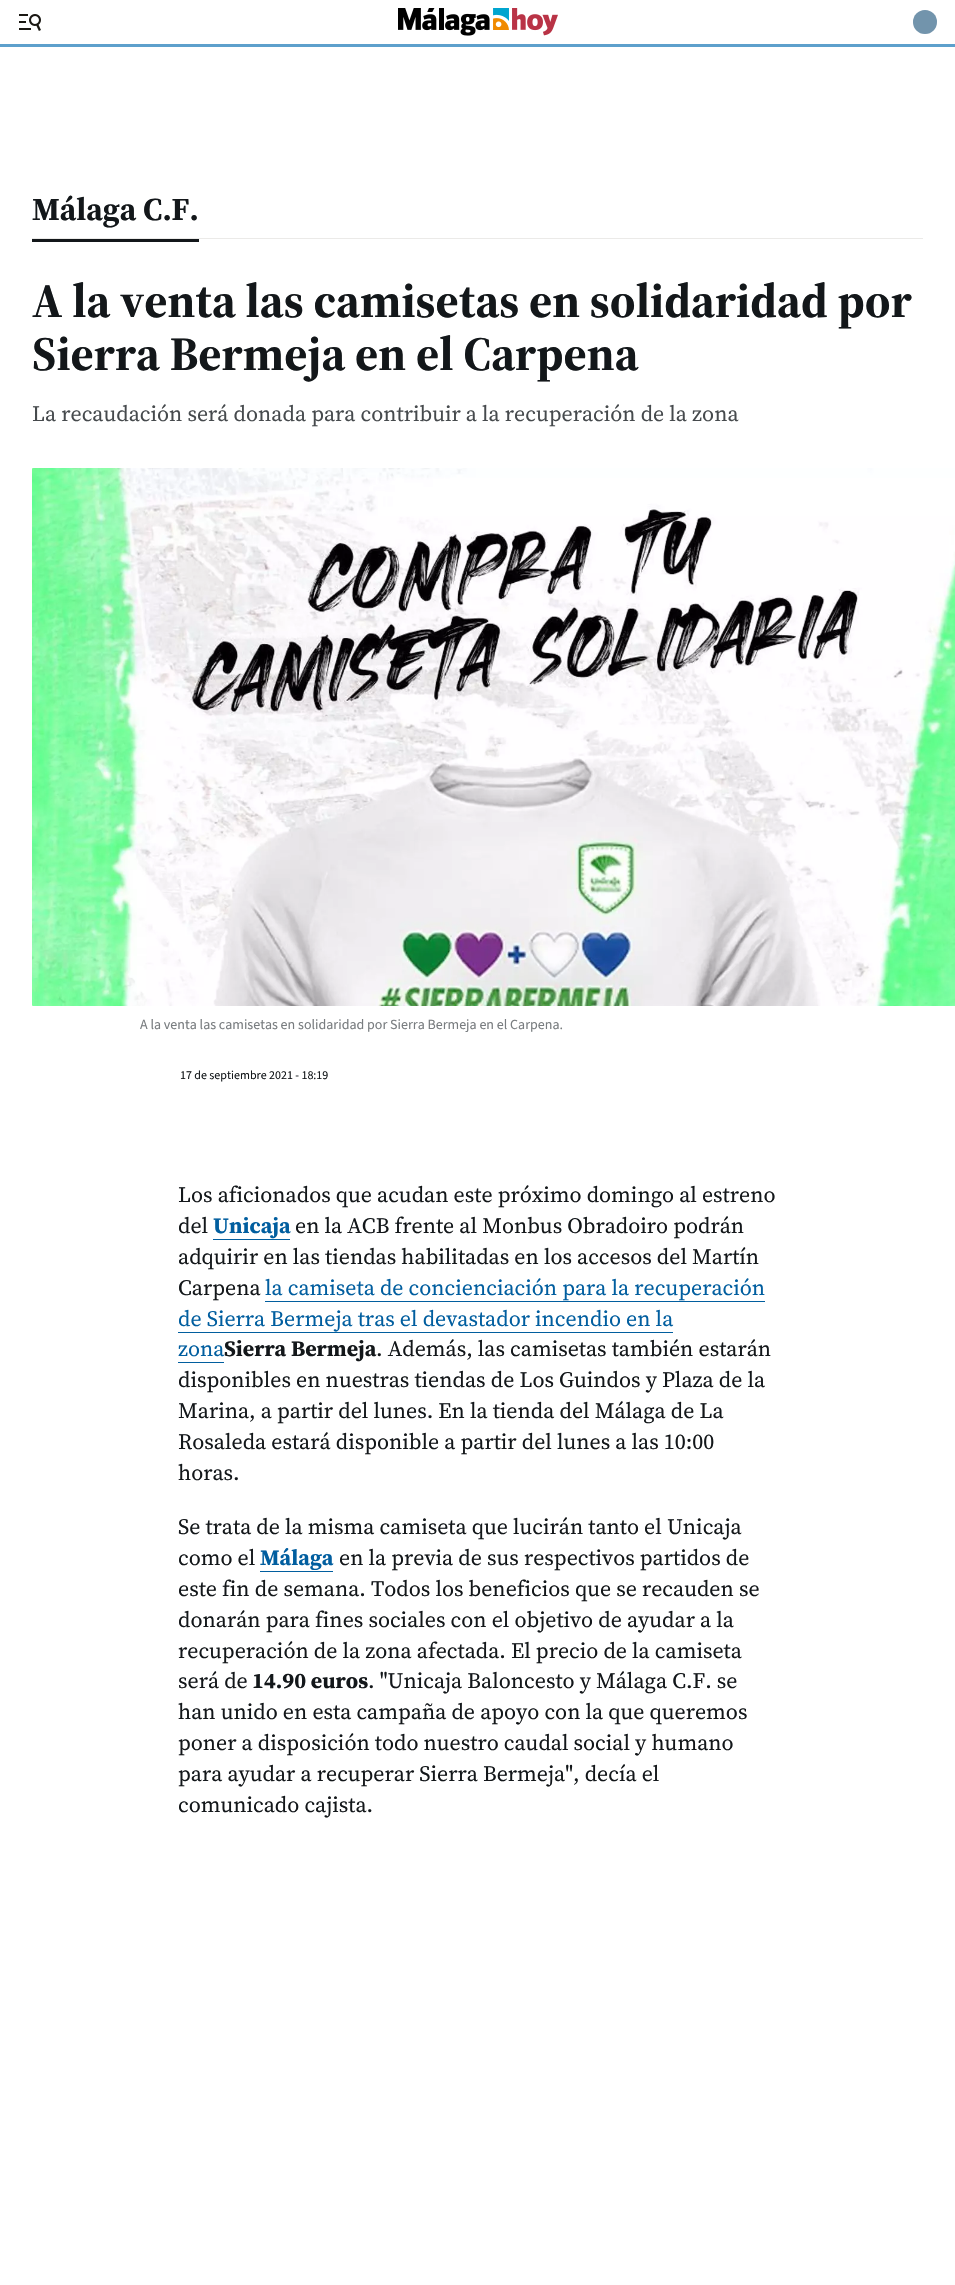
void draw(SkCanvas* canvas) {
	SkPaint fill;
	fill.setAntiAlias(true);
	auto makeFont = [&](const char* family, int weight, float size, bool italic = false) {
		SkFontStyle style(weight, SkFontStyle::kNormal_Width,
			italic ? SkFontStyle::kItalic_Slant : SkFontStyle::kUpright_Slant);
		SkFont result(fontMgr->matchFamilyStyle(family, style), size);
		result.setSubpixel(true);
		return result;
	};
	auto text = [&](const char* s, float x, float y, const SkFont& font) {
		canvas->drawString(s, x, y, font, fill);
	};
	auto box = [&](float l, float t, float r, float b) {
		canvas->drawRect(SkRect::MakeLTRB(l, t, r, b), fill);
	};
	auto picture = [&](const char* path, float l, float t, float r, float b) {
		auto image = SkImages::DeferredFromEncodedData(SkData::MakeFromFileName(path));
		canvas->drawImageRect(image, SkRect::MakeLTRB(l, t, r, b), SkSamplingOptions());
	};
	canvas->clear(0xFFFFFFFF);
	picture("image0.png", 19, 14, 41, 31);
	picture("image1.png", 398, 8, 558, 36);
	fill.setColor(0xFFA7BCCB);
	canvas->drawCircle(925, 22, 12, fill);
	fill.setColor(0x6624577C);
	canvas->drawCircle(925, 22, 12, fill);
	fill.setColor(0xFF5DA0CC);
	box(0, 44, 955, 47);
	fill.setColor(0xFF13171A);
	box(32, 239, 199, 242);
	fill.setColor(0xFFEBEAE8);
	box(32, 238, 923, 239);
	picture("image2.png", 32, 468, 955, 1006);
	canvas->save();
	canvas->clipRect(SkRect::MakeLTRB(213, 1210, 290, 1240));
	fill.setColor(0xFF015E9F);
	canvas->drawPath(SkPathBuilder(SkPathFillType::kEvenOdd).moveTo(114, 1111).lineTo(389, 1111).lineTo(389, 1339).lineTo(114, 1339).close().moveTo(213, 1206).lineTo(290, 1206).cubicTo(291, 1206, 292, 1207, 292, 1208).lineTo(292, 1238).cubicTo(292, 1238, 291, 1239, 290, 1239).lineTo(213, 1239).cubicTo(212, 1239, 212, 1238, 212, 1238).lineTo(212, 1208).cubicTo(212, 1207, 212, 1206, 213, 1206).close().detach(), fill);
	canvas->restore();
	canvas->save();
	canvas->clipRect(SkRect::MakeLTRB(265, 1272, 765, 1302));
	canvas->drawPath(SkPathBuilder(SkPathFillType::kEvenOdd).moveTo(166, 1173).lineTo(864, 1173).lineTo(864, 1401).lineTo(166, 1401).close().moveTo(265, 1268).lineTo(765, 1268).cubicTo(766, 1268, 766, 1269, 766, 1270).lineTo(766, 1300).cubicTo(766, 1300, 766, 1301, 765, 1301).lineTo(265, 1301).cubicTo(264, 1301, 264, 1300, 264, 1300).lineTo(264, 1270).cubicTo(264, 1269, 264, 1268, 265, 1268).close().detach(), fill);
	canvas->restore();
	canvas->save();
	canvas->clipRect(SkRect::MakeLTRB(178, 1303, 673, 1333));
	canvas->drawPath(SkPathBuilder(SkPathFillType::kEvenOdd).moveTo(79, 1204).lineTo(772, 1204).lineTo(772, 1432).lineTo(79, 1432).close().moveTo(178, 1299).lineTo(673, 1299).cubicTo(674, 1299, 674, 1300, 674, 1300).lineTo(674, 1330).cubicTo(674, 1331, 674, 1332, 673, 1332).lineTo(178, 1332).cubicTo(177, 1332, 176, 1331, 176, 1330).lineTo(176, 1300).cubicTo(176, 1300, 177, 1299, 178, 1299).close().detach(), fill);
	canvas->restore();
	canvas->save();
	canvas->clipRect(SkRect::MakeLTRB(178, 1333, 224, 1363));
	canvas->drawPath(SkPathBuilder(SkPathFillType::kEvenOdd).moveTo(79, 1234).lineTo(323, 1234).lineTo(323, 1462).lineTo(79, 1462).close().moveTo(178, 1329).lineTo(224, 1329).cubicTo(225, 1329, 226, 1330, 226, 1330).lineTo(226, 1360).cubicTo(226, 1361, 225, 1362, 224, 1362).lineTo(178, 1362).cubicTo(177, 1362, 176, 1361, 176, 1360).lineTo(176, 1330).cubicTo(176, 1330, 177, 1329, 178, 1329).close().detach(), fill);
	canvas->restore();
	canvas->save();
	canvas->clipRect(SkRect::MakeLTRB(260, 1542, 333, 1572));
	canvas->drawPath(SkPathBuilder(SkPathFillType::kEvenOdd).moveTo(161, 1443).lineTo(432, 1443).lineTo(432, 1671).lineTo(161, 1671).close().moveTo(260, 1538).lineTo(333, 1538).cubicTo(334, 1538, 334, 1539, 334, 1540).lineTo(334, 1570).cubicTo(334, 1570, 334, 1571, 333, 1571).lineTo(260, 1571).cubicTo(259, 1571, 258, 1570, 258, 1570).lineTo(258, 1540).cubicTo(258, 1539, 259, 1538, 260, 1538).close().detach(), fill);
	canvas->restore();
	auto font1 = makeFont("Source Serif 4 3", 700, 32);
	fill.setColor(0xFF13171A);
	text("Málaga C.F.", 32, 220, font1);
	auto font2 = makeFont("Source Serif 4", 700, 48);
	text("A la venta las camisetas en solidaridad por", 32, 317, font2);
	text("Sierra Bermeja en el Carpena", 32, 370, font2);
	auto font3 = makeFont("Source Serif 4", 400, 22);
	fill.setColor(0xFF464A4D);
	text("La recaudación será donada para contribuir a la recuperación de la zona", 32, 421, font3);
	auto font4 = makeFont("Source Sans 3", 400, 14);
	fill.setColor(0xFF797D80);
	text("A la venta las camisetas en solidaridad por Sierra Bermeja en el Carpena.", 140, 1029, font4);
	auto font5 = makeFont("Source Sans 3", 400, 12);
	fill.setColor(0xFF13171A);
	text("17 de septiembre 2021 - 18:19", 180, 1079, font5);
	text("Los aficionados que acudan este próximo domingo al estreno", 178, 1202, font3);
	text("del", 178, 1233, font3);
	auto font6 = makeFont("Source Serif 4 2", 700, 22);
	fill.setColor(0xFF015E9F);
	text("Unicaja", 213, 1233, font6);
	fill.setColor(0xFF13171A);
	text("en la ACB frente al Monbus Obradoiro podrán", 295, 1233, font3);
	text("adquirir en las tiendas habilitadas en los accesos del Martín", 178, 1264, font3);
	text("Carpena", 178, 1295, font3);
	fill.setColor(0xFF015E9F);
	text("la camiseta de concienciación para la recuperación", 265, 1295, font3);
	text("de Sierra Bermeja tras el devastador incendio en la", 178, 1326, font3);
	text("zona", 178, 1356, font3);
	fill.setColor(0xFF13171A);
	text("Sierra Bermeja", 224, 1356, font6);
	text(". Además, las camisetas también estarán", 376, 1356, font3);
	text("disponibles en nuestras tiendas de Los Guindos y Plaza de la", 178, 1387, font3);
	text("Marina, a partir del lunes. En la tienda del Málaga de La", 178, 1418, font3);
	text("Rosaleda estará disponible a partir del lunes a las 10:00", 178, 1449, font3);
	text("horas.", 178, 1480, font3);
	text("Se trata de la misma camiseta que lucirán tanto el Unicaja", 178, 1534, font3);
	text("como el", 178, 1565, font3);
	fill.setColor(0xFF015E9F);
	text("Málaga", 260, 1565, font6);
	fill.setColor(0xFF13171A);
	text("en la previa de sus respectivos partidos de", 339, 1565, font3);
	text("este fin de semana. Todos los beneficios que se recauden se", 178, 1596, font3);
	text("donarán para fines sociales con el objetivo de ayudar a la", 178, 1627, font3);
	text("recuperación de la zona afectada. El precio de la camiseta", 178, 1658, font3);
	text("será de", 178, 1688, font3);
	text("14.90 euros", 252, 1688, font6);
	text(". \"Unicaja Baloncesto y Málaga C.F. se", 368, 1688, font3);
	text("han unido en esta campaña de apoyo con la que queremos", 178, 1719, font3);
	text("poner a disposición todo nuestro caudal social y humano", 178, 1750, font3);
	text("para ayudar a recuperar Sierra Bermeja\", decía el", 178, 1781, font3);
	text("comunicado cajista.", 178, 1812, font3);
}
